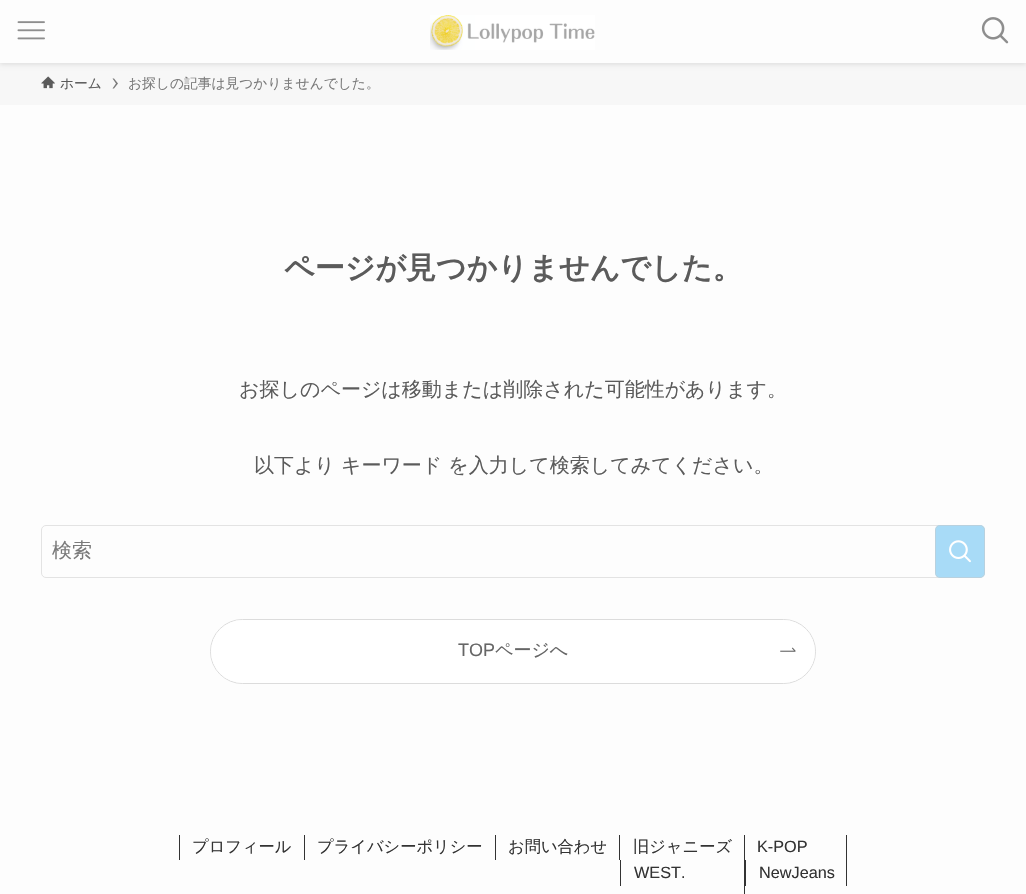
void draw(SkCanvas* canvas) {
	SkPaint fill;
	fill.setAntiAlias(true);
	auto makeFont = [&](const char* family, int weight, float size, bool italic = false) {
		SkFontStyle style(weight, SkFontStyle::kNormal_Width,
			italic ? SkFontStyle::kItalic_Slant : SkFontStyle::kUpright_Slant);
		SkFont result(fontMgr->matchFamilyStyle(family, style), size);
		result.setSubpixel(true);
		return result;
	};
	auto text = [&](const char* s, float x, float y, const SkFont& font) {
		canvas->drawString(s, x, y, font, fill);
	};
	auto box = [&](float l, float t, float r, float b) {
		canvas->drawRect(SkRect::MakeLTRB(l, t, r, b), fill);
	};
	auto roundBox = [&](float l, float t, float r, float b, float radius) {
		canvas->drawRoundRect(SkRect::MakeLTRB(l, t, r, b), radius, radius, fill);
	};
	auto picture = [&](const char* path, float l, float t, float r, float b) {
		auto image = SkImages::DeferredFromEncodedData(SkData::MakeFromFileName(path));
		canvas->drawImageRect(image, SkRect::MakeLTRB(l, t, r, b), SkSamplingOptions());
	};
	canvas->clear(0xFFFDFDFD);
	fill.setColor(0xFFF7F7F7);
	box(0, 63, 1026, 105);
	fill.setColor(0x1F000000);
	fill.setMaskFilter(SkMaskFilter::MakeBlur(kNormal_SkBlurStyle, 2.5f));
	canvas->drawRect(SkRect::MakeLTRB(0, 1, 1026, 64), fill);
	fill.setMaskFilter(nullptr);
	fill.setColor(0xFFFDFDFD);
	box(0, 0, 1026, 63);
	picture("image0.png", 17, 21, 45, 40);
	picture("image1.png", 430, 15, 595, 50);
	picture("image2.png", 981, 17, 1009, 44);
	picture("image3.png", 41, 76, 55, 89);
	fill.setColor(0xFF7A7A7A);
	canvas->drawPath(SkPathBuilder().moveTo(114, 78.5f).lineTo(112.5f, 78.5f).lineTo(116, 83.5f).lineTo(112.5f, 88.5f).lineTo(114, 88.5f).lineTo(118, 83.5f).close().detach(), fill);
	fill.setStyle(SkPaint::kStroke_Style);
	fill.setStrokeWidth(1);
	fill.setColor(0xFFE3E3E3);
	canvas->drawRoundRect(SkRect::MakeLTRB(41.5f, 525.5f, 984.5f, 577.5f), 4.5f, 4.5f, fill);
	fill.setStyle(SkPaint::kFill_Style);
	fill.setColor(0xFFA8DBF7);
	roundBox(935, 525, 985, 578, 5);
	fill.setStyle(SkPaint::kStroke_Style);
	fill.setColor(0x80C7C7C7);
	canvas->drawRoundRect(SkRect::MakeLTRB(935.5f, 525.5f, 984.5f, 577.5f), 4.5f, 4.5f, fill);
	picture("image4.png", 949, 540, 971, 563);
	fill.setColor(0xFFDCDCDC);
	canvas->drawRoundRect(SkRect::MakeLTRB(210.5f, 619.5f, 815.5f, 683.5f), 32, 32, fill);
	fill.setStyle(SkPaint::kFill_Style);
	fill.setColor(0xFFFFFFFF);
	roundBox(211, 620, 815, 683, 31.5f);
	picture("image5.png", 780, 647, 796, 652);
	fill.setColor(0xFF333333);
	box(304, 835, 305, 860);
	box(179, 835, 180, 860);
	box(495, 835, 496, 860);
	box(619, 835, 620, 860);
	box(744, 835, 745, 894);
	box(620, 860, 621, 886);
	box(846, 835, 847, 886);
	box(745, 860, 746, 886);
	auto font1 = makeFont("WenQuanYi Zen Hei", 500, 13.75f);
	fill.setColor(0xFF5B5B5B);
	text("ホーム", 60, 88, font1);
	fill.setColor(0xFF7A7A7A);
	text("お探しの記事は見つかりませんでした。", 128, 88, font1);
	auto font2 = makeFont("WenQuanYi Zen Hei", 700, 30);
	fill.setColor(0xFF5B5B5B);
	text("ページが見つかりませんでした。", 284, 278, font2);
	auto font3 = makeFont("WenQuanYi Zen Hei", 500, 20);
	text("お探しのページは移動または削除された可能性があります。", 239, 396, font3);
	text("以下より キーワード を入力して検索してみてください。", 254, 472, font3);
	fill.setColor(0xFF7A7A7A);
	text("検索", 52, 557, font3);
	auto font4 = makeFont("Liberation Sans", 400, 18);
	fill.setColor(0xFF666666);
	text("TOP", 458, 656, font4);
	auto font5 = makeFont("WenQuanYi Zen Hei", 500, 18);
	text("ページへ", 495, 656, font5);
	auto font6 = makeFont("WenQuanYi Zen Hei", 500, 16.25f);
	fill.setColor(0xFF333333);
	text("プロフィール", 192, 852, font6);
	text("プライバシーポリシー", 317, 852, font6);
	text("お問い合わせ", 508, 852, font6);
	text("旧ジャニーズ", 633, 852, font6);
	auto font7 = makeFont("Liberation Sans", 400, 16.25f);
	text("WEST.", 634, 878, font7);
	text("K-POP", 757, 852, font7);
	text("NewJeans", 759, 878, font7);
}
